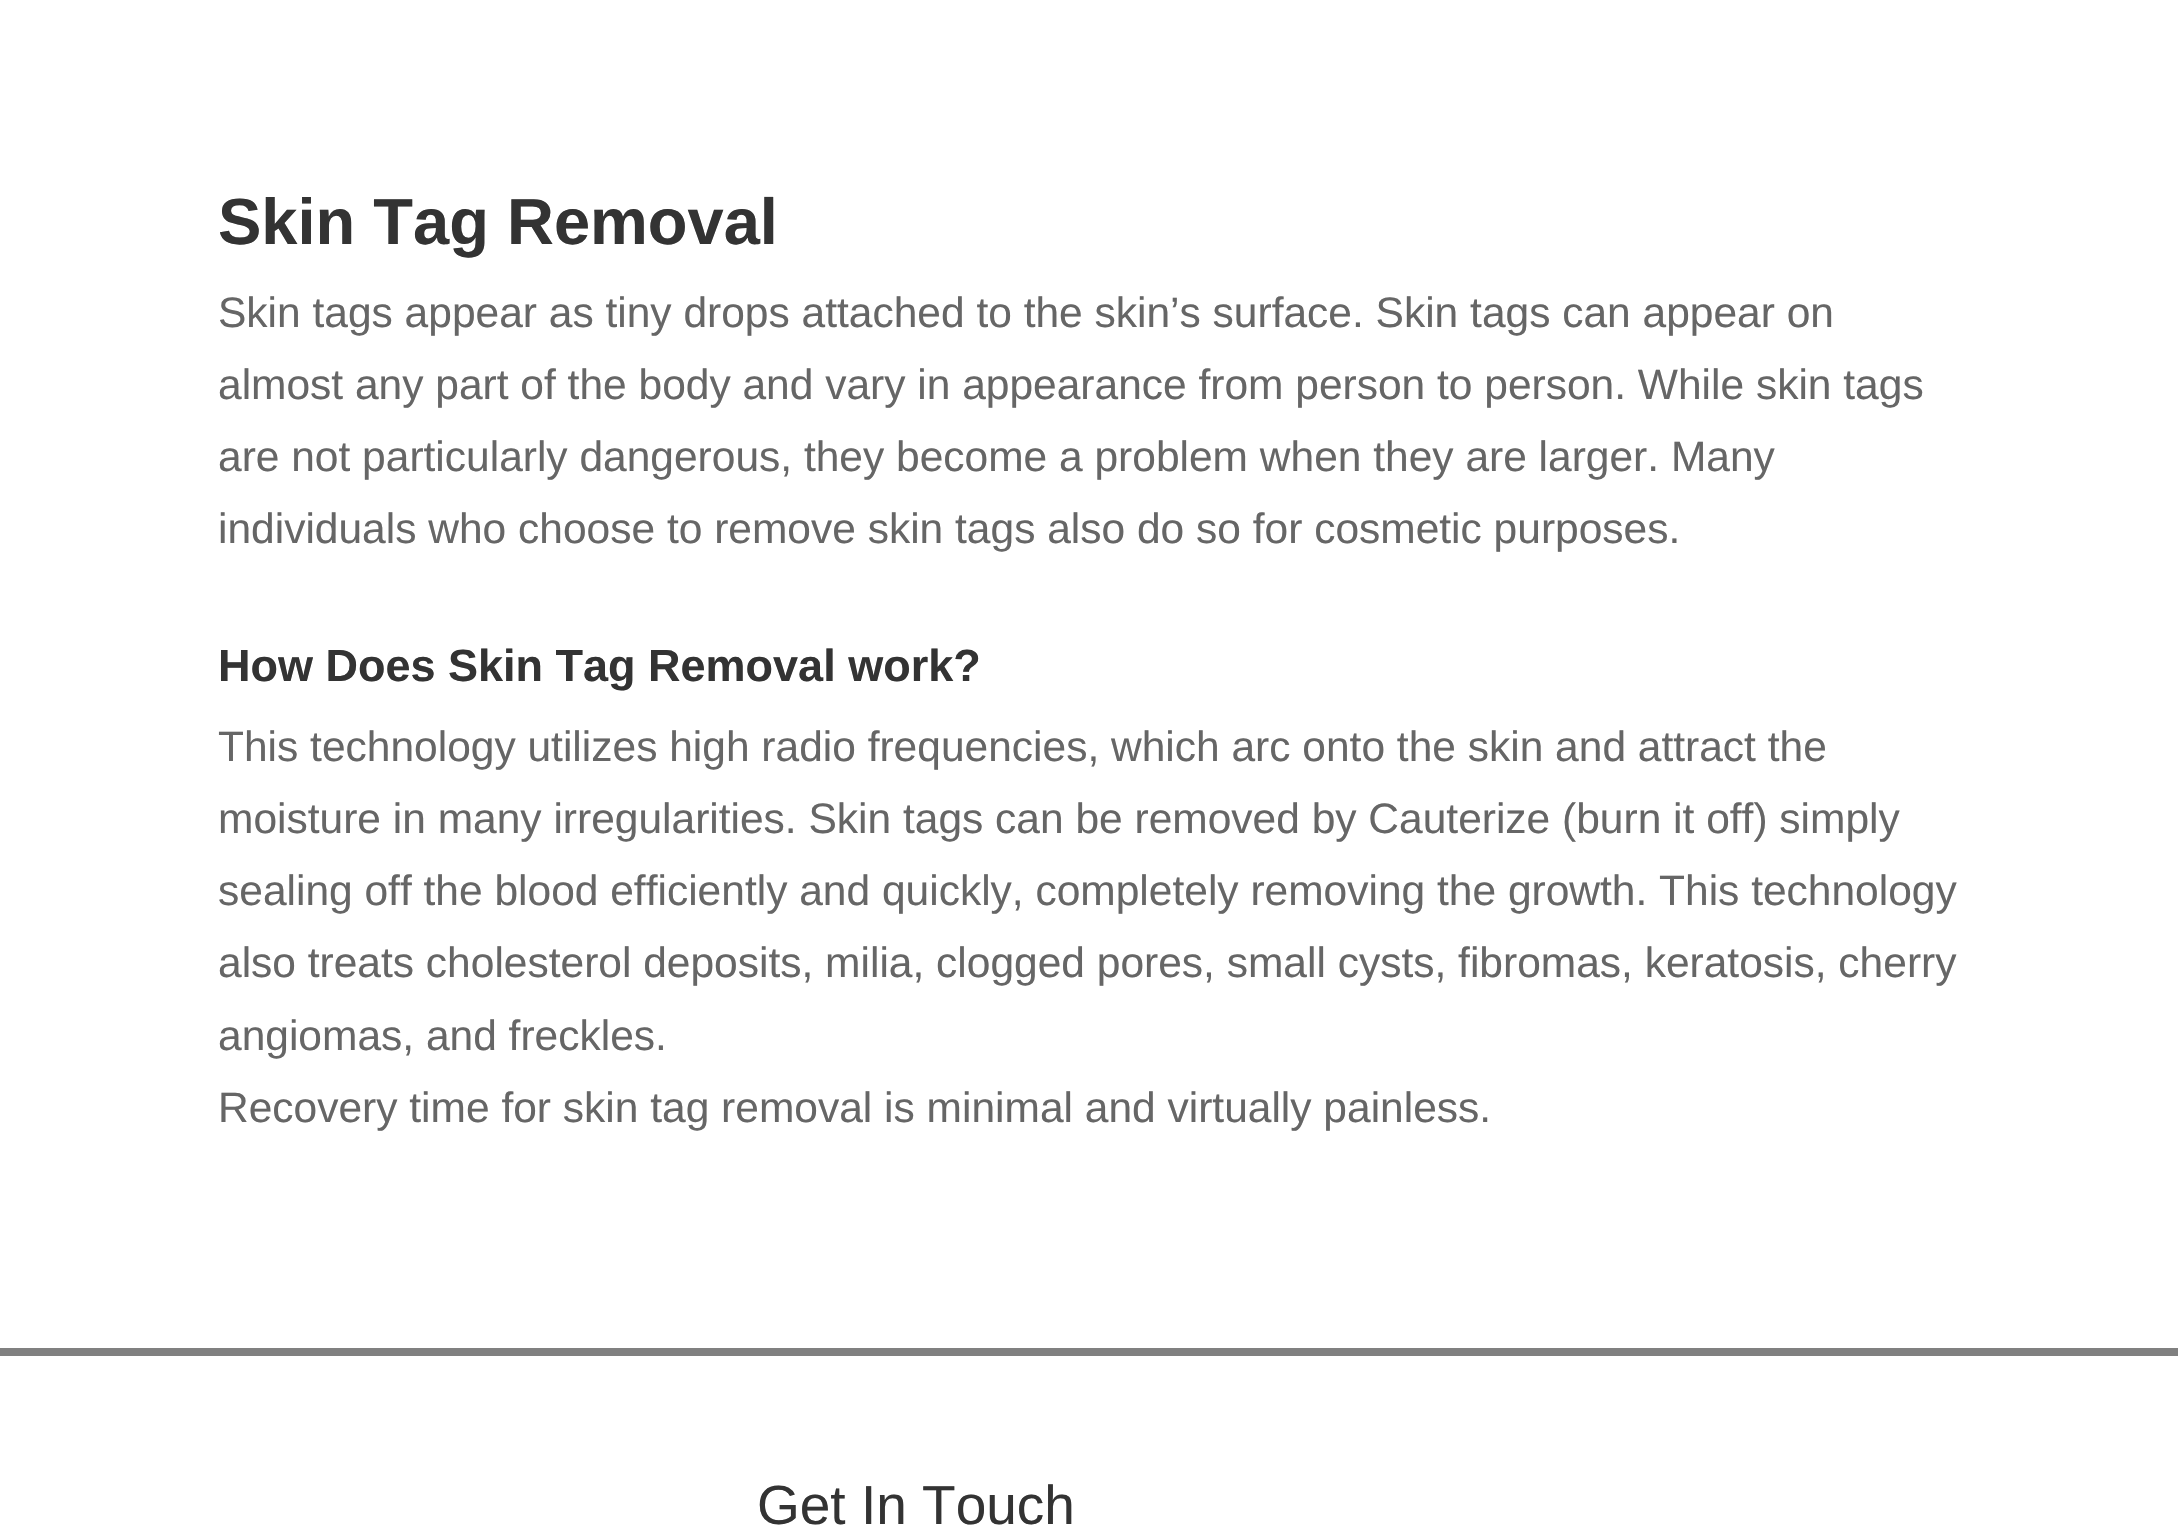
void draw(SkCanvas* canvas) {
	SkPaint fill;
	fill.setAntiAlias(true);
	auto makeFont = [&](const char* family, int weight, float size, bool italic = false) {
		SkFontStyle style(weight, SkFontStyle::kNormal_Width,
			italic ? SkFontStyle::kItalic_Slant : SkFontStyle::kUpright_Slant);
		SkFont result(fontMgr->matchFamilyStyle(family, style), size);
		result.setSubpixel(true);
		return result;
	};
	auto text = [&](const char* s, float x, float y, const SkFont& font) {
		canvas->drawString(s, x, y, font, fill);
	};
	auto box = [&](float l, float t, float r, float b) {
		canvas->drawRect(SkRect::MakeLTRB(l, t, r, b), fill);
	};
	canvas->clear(0xFFFFFFFF);
	fill.setColor(0xFF808080);
	box(0, 1348, 2178, 1356);
	auto font1 = makeFont("Liberation Sans", 700, 65);
	fill.setColor(0xFF333333);
	text("Skin Tag Removal", 218, 244, font1);
	auto font2 = makeFont("Liberation Sans", 400, 42.5f);
	fill.setColor(0xFF666666);
	text("Skin tags appear as tiny drops attached to the skin’s surface. Skin tags can appear on", 218, 327, font2);
	text("almost any part of the body and vary in appearance from person to person. While skin tags", 218, 399, font2);
	text("are not particularly dangerous, they become a problem when they are larger. Many", 218, 471, font2);
	text("individuals who choose to remove skin tags also do so for cosmetic purposes.", 218, 543, font2);
	auto font3 = makeFont("Liberation Sans", 700, 45);
	fill.setColor(0xFF333333);
	text("How Does Skin Tag Removal work?", 218, 681, font3);
	fill.setColor(0xFF666666);
	text("This technology utilizes high radio frequencies, which arc onto the skin and attract the", 218, 761, font2);
	text("moisture in many irregularities. Skin tags can be removed by Cauterize (burn it off) simply", 218, 833, font2);
	text("sealing off the blood efficiently and quickly, completely removing the growth. This technology", 218, 905, font2);
	text("also treats cholesterol deposits, milia, clogged pores, small cysts, fibromas, keratosis, cherry", 218, 977, font2);
	text("angiomas, and freckles.", 218, 1050, font2);
	text("Recovery time for skin tag removal is minimal and virtually painless.", 218, 1122, font2);
	auto font4 = makeFont("Liberation Sans", 400, 55);
	fill.setColor(0xFF333333);
	text("Get In Touch", 757, 1524, font4);
}
